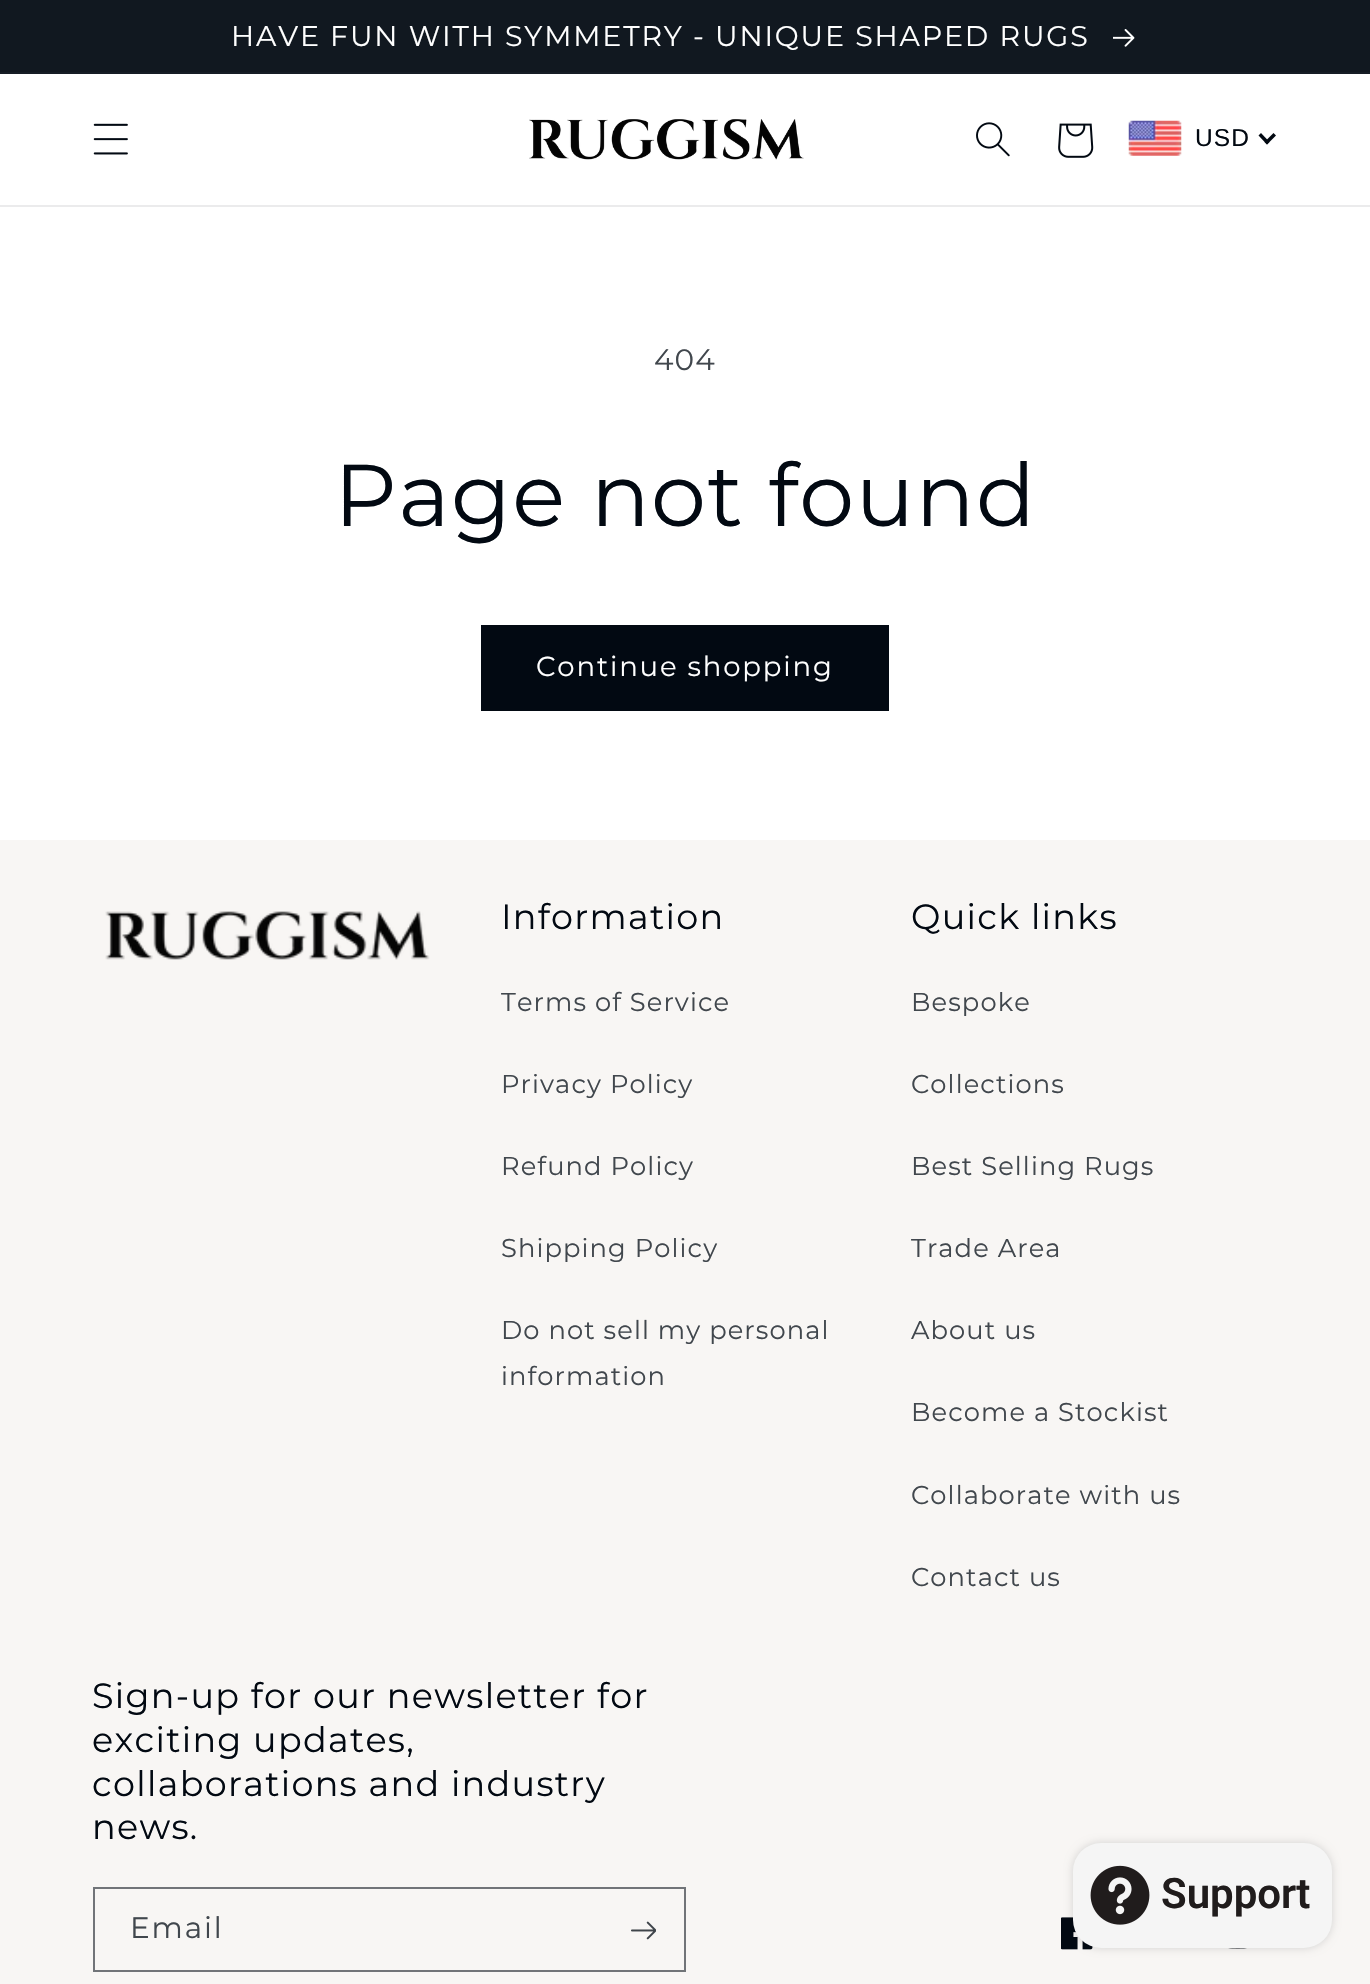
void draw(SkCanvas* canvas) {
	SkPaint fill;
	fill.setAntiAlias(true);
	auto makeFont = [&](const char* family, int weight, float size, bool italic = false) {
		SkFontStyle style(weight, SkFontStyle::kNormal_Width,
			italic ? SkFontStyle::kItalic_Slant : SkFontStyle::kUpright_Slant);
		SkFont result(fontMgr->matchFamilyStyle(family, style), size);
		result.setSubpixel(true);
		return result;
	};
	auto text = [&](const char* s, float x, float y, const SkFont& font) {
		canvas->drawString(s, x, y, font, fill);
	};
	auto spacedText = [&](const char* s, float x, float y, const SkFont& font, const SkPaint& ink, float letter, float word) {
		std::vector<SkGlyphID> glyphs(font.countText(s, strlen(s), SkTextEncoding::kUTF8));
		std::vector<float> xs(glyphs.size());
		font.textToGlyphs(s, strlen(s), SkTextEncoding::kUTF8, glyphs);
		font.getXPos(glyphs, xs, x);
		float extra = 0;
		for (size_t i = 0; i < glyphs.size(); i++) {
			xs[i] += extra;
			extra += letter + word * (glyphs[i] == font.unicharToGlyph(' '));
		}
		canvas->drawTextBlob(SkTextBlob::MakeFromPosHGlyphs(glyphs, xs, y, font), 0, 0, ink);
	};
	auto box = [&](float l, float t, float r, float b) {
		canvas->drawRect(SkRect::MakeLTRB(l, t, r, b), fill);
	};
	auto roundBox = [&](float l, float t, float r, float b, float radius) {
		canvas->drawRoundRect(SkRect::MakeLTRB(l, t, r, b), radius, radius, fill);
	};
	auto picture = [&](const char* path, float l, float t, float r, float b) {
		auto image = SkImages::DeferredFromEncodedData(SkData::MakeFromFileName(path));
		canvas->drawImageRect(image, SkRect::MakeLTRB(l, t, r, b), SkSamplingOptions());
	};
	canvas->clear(0xFFFFFFFF);
	fill.setColor(0xFF161D25);
	box(0, 72, 1370, 74);
	fill.setColor(0xFF111820);
	box(0, 0, 1370, 72);
	picture("image0.png", 1113, 29, 1135, 47);
	fill.setColor(0xFFEBEBEC);
	box(0, 205, 1370, 207);
	picture("image1.png", 93, 123, 128, 155);
	picture("image2.png", 529, 119, 804, 160);
	picture("image3.png", 976, 122, 1010, 157);
	picture("image4.png", 1058, 123, 1094, 158);
	picture("image5.png", 1128, 120, 1182, 156);
	fill.setColor(0xFF020912);
	canvas->drawPath(SkPathBuilder().moveTo(1273.5f, 133).lineTo(1276, 135.5f).lineTo(1267, 144.5f).lineTo(1264.5f, 142).close().detach(), fill);
	canvas->drawPath(SkPathBuilder().moveTo(1261, 133).lineTo(1269.5f, 142).lineTo(1267, 144.5f).lineTo(1258.5f, 135.5f).close().detach(), fill);
	box(481, 625, 889, 711);
	fill.setColor(0xFFF8F6F4);
	box(0, 840, 1370, 1984);
	picture("image6.png", 105, 911, 430, 960);
	fill.setStyle(SkPaint::kStroke_Style);
	fill.setStrokeWidth(2);
	fill.setColor(0xFF717478);
	canvas->drawRect(SkRect::MakeLTRB(94, 1888, 685, 1971), fill);
	picture("image7.png", 631, 1921, 656, 1940);
	picture("image8.png", 1061, 1917, 1093, 1950);
	picture("image9.png", 1228, 1948, 1247, 1949);
	fill.setStyle(SkPaint::kFill_Style);
	fill.setColor(0x26000000);
	fill.setMaskFilter(SkMaskFilter::MakeBlur(kNormal_SkBlurStyle, 4.5f));
	canvas->drawRoundRect(SkRect::MakeLTRB(1073, 1843, 1332, 1948), 28, 28, fill);
	fill.setMaskFilter(nullptr);
	fill.setColor(0xFFF5F5F5);
	roundBox(1073, 1843, 1332, 1948, 28);
	picture("image10.png", 1090, 1865, 1150, 1925);
	auto font1 = makeFont("Montserrat", 400, 28.45f);
	fill.setColor(0xFFFFFFFF);
	spacedText("HAVE FUN WITH SYMMETRY - UNIQUE SHAPED RUGS", 231, 46, font1, fill, 1.85f, 0);
	auto font2 = makeFont("Liberation Sans", 400, 24.5f);
	fill.setColor(0xFF020912);
	spacedText("USD", 1195, 146, font2, fill, 1.1f, 0);
	auto font3 = makeFont("Montserrat", 400, 29.5f);
	fill.setColor(0xFF41474D);
	spacedText("404", 654, 370, font3, fill, 1.1f, 0);
	auto font4 = makeFont("Montserrat", 400, 87.5f);
	fill.setColor(0xFF020912);
	spacedText("Page not found", 334, 526, font4, fill, 1.3f, 0);
	auto font5 = makeFont("Montserrat", 400, 27.5f);
	fill.setColor(0xFFFFFFFF);
	spacedText("Continue shopping", 536, 676, font5, fill, 1.85f, 0);
	auto font6 = makeFont("Montserrat", 400, 35);
	fill.setColor(0xFF020912);
	spacedText("Information", 501, 929, font6, fill, 1.3f, 0);
	auto font7 = makeFont("Montserrat", 400, 25.75f);
	fill.setColor(0xFF41474D);
	spacedText("Terms of Service", 501, 1011, font7, fill, 1.1f, 0);
	spacedText("Privacy Policy", 501, 1093, font7, fill, 1.1f, 0);
	spacedText("Refund Policy", 501, 1175, font7, fill, 1.1f, 0);
	spacedText("Shipping Policy", 501, 1257, font7, fill, 1.1f, 0);
	spacedText("Do not sell my personal", 501, 1339, font7, fill, 1.1f, 0);
	spacedText("information", 501, 1385, font7, fill, 1.1f, 0);
	fill.setColor(0xFF020912);
	spacedText("Quick links", 911, 929, font6, fill, 1.3f, 0);
	fill.setColor(0xFF41474D);
	spacedText("Bespoke", 911, 1011, font7, fill, 1.1f, 0);
	spacedText("Collections", 911, 1093, font7, fill, 1.1f, 0);
	spacedText("Best Selling Rugs", 911, 1175, font7, fill, 1.1f, 0);
	spacedText("Trade Area", 911, 1257, font7, fill, 1.1f, 0);
	spacedText("About us", 911, 1339, font7, fill, 1.1f, 0);
	spacedText("Become a Stockist", 911, 1421, font7, fill, 1.1f, 0);
	spacedText("Collaborate with us", 911, 1504, font7, fill, 1.1f, 0);
	spacedText("Contact us", 911, 1586, font7, fill, 1.1f, 0);
	fill.setColor(0xFF020912);
	spacedText("Sign-up for our newsletter for", 92, 1708, font6, fill, 1.3f, 0);
	spacedText("exciting updates,", 92, 1752, font6, fill, 1.3f, 0);
	spacedText("collaborations and industry", 92, 1796, font6, fill, 1.3f, 0);
	spacedText("news.", 92, 1839, font6, fill, 1.3f, 0);
	fill.setColor(0xFF41474D);
	spacedText("Email", 130, 1938, font3, fill, 1.85f, 0);
	auto font8 = makeFont("Roboto", 600, 42);
	fill.setColor(0xFF201C1C);
	text("Support", 1161, 1908, font8);
}
